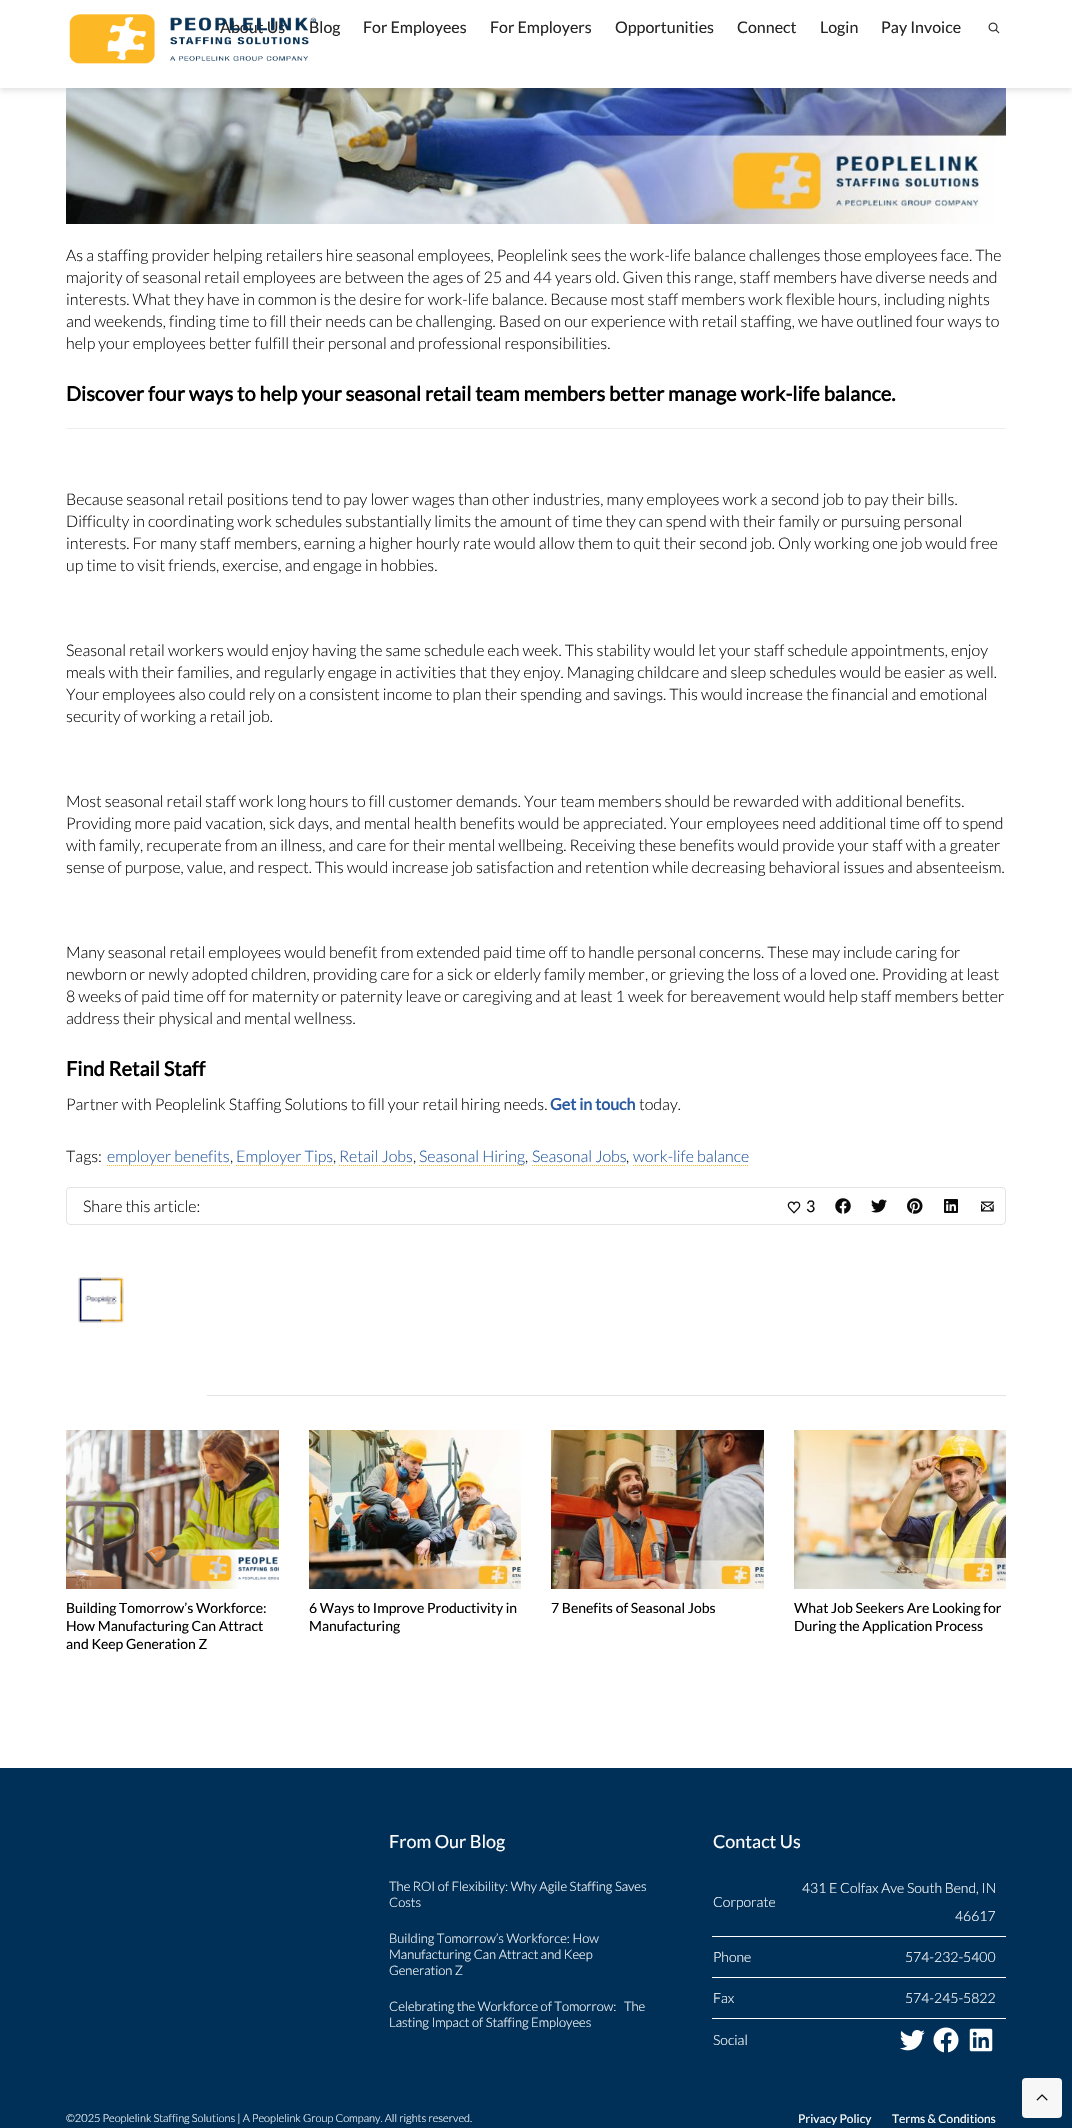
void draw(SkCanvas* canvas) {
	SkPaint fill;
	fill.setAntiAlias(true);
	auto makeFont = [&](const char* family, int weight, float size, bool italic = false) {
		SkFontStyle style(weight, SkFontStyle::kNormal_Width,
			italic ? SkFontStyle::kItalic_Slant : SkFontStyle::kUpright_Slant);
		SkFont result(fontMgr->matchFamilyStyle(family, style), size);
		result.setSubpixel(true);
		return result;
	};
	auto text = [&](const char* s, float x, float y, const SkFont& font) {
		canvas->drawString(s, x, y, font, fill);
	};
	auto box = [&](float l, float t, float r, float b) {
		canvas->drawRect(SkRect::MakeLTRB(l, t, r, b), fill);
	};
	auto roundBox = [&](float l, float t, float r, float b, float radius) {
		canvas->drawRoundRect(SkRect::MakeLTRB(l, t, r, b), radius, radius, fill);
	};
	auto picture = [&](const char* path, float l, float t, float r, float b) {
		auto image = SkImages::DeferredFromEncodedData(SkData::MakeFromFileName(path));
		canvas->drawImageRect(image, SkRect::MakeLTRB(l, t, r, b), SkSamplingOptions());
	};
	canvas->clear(0xFFFFFFFF);
	picture("image2.png", 66, 88, 1006, 224);
	fill.setColor(0x1A000000);
	fill.setMaskFilter(SkMaskFilter::MakeBlur(kNormal_SkBlurStyle, 2.5f));
	canvas->drawRect(SkRect::MakeLTRB(0, 3, 1072, 91), fill);
	fill.setMaskFilter(nullptr);
	fill.setColor(0xFFFFFFFF);
	box(0, 0, 1072, 88);
	picture("image1.png", 988, 22, 1000, 34);
	fill.setColor(0xFFEEEEEE);
	box(66, 428, 1006, 429);
	fill.setStyle(SkPaint::kStroke_Style);
	fill.setStrokeWidth(1);
	fill.setColor(0xFFFDB827);
	fill.setPathEffect(SkDashPathEffect::Make({{1, 1}}, 0));
	canvas->drawPath(SkPathBuilder().moveTo(107, 1165.5f).lineTo(230, 1165.5f).detach(), fill);
	fill.setPathEffect(nullptr);
	fill.setPathEffect(SkDashPathEffect::Make({{1, 1}}, 0));
	canvas->drawPath(SkPathBuilder().moveTo(236, 1165.5f).lineTo(333, 1165.5f).detach(), fill);
	fill.setPathEffect(nullptr);
	fill.setPathEffect(SkDashPathEffect::Make({{1, 1}}, 0));
	canvas->drawPath(SkPathBuilder().moveTo(339, 1165.5f).lineTo(413, 1165.5f).detach(), fill);
	fill.setPathEffect(nullptr);
	fill.setPathEffect(SkDashPathEffect::Make({{1, 1}}, 0));
	canvas->drawPath(SkPathBuilder().moveTo(419, 1165.5f).lineTo(525, 1165.5f).detach(), fill);
	fill.setPathEffect(nullptr);
	fill.setPathEffect(SkDashPathEffect::Make({{1, 1}}, 0));
	canvas->drawPath(SkPathBuilder().moveTo(532, 1165.5f).lineTo(626, 1165.5f).detach(), fill);
	fill.setPathEffect(nullptr);
	fill.setPathEffect(SkDashPathEffect::Make({{1, 1}}, 0));
	canvas->drawPath(SkPathBuilder().moveTo(633, 1165.5f).lineTo(749, 1165.5f).detach(), fill);
	fill.setPathEffect(nullptr);
	fill.setColor(0xFFE4E4E4);
	canvas->drawRoundRect(SkRect::MakeLTRB(66.5f, 1187.5f, 1005.5f, 1224.5f), 3.5f, 3.5f, fill);
	picture("image3.png", 787, 1201, 801, 1214);
	picture("image4.png", 835, 1198, 851, 1214);
	picture("image5.png", 871, 1199, 887, 1213);
	picture("image6.png", 907, 1198, 923, 1214);
	picture("image7.png", 944, 1199, 958, 1213);
	picture("image8.png", 981, 1201, 994, 1212);
	picture("image9.png", 78, 1277, 124, 1323);
	fill.setStyle(SkPaint::kFill_Style);
	box(207, 1395, 1006, 1396);
	picture("image10.png", 66, 1430, 279, 1589);
	picture("image11.png", 309, 1430, 521, 1589);
	picture("image12.png", 551, 1430, 764, 1589);
	picture("image13.png", 794, 1430, 1006, 1589);
	fill.setColor(0xFF003057);
	box(0, 1768, 1072, 2128);
	fill.setColor(0xFFFFFFFF);
	box(712, 1936, 1006, 1937);
	box(712, 1977, 1006, 1978);
	box(712, 2018, 1006, 2019);
	picture("image14.png", 900, 2030, 925, 2051);
	picture("image15.png", 933, 2027, 959, 2053);
	picture("image16.png", 969, 2028, 993, 2052);
	fill.setColor(0xFFF7F7F7);
	roundBox(1022, 2078, 1062, 2118, 4);
	picture("image17.png", 1036, 2094, 1048, 2101);
	auto font1 = makeFont("Lato", 400, 16);
	fill.setColor(0xFF252525);
	text("About Us", 220, 33, font1);
	text("Blog", 309, 33, font1);
	picture("image0.png", 69, 14, 317, 64);
	text("For Employees", 363, 33, font1);
	text("For Employers", 490, 33, font1);
	text("Opportunities", 615, 33, font1);
	text("Connect", 737, 33, font1);
	text("Login", 820, 33, font1);
	text("Pay Invoice", 881, 33, font1);
	auto font2 = makeFont("Lato", 300, 16);
	fill.setColor(0xFF0A0A0A);
	text("As a staffing provider helping retailers hire seasonal employees, Peoplelink sees the work-life balance challenges those employees face. The", 66, 261, font2);
	text("majority of seasonal retail employees are between the ages of 25 and 44 years old. Given this range, staff members have diverse needs and", 66, 283, font2);
	text("interests. What they have in common is the desire for work-life balance. Because most staff members work flexible hours, including nights", 66, 305, font2);
	text("and weekends, finding time to fill their needs can be challenging. Based on our experience with retail staffing, we have outlined four ways to", 66, 327, font2);
	text("help your employees better fulfill their personal and professional responsibilities.", 66, 349, font2);
	auto font3 = makeFont("Lato", 700, 20);
	fill.setColor(0xFF000000);
	text("Discover four ways to help your seasonal retail team members better manage work-life balance.", 66, 401, font3);
	fill.setColor(0xFF0A0A0A);
	text("Because seasonal retail positions tend to pay lower wages than other industries, many employees work a second job to pay their bills.", 66, 505, font2);
	text("Difficulty in coordinating work schedules substantially limits the amount of time they can spend with their family or pursuing personal", 66, 527, font2);
	text("interests. For many staff members, earning a higher hourly rate would allow them to quit their second job. Only working one job would free", 66, 549, font2);
	text("up time to visit friends, exercise, and engage in hobbies.", 66, 571, font2);
	text("Seasonal retail workers would enjoy having the same schedule each week. This stability would let your staff schedule appointments, enjoy", 66, 656, font2);
	text("meals with their families, and regularly engage in activities that they enjoy. Managing childcare and sleep schedules would be easier as well.", 66, 678, font2);
	text("Your employees also could rely on a consistent income to plan their spending and savings. This would increase the financial and emotional", 66, 700, font2);
	text("security of working a retail job.", 66, 722, font2);
	text("Most seasonal retail staff work long hours to fill customer demands. Your team members should be rewarded with additional benefits.", 66, 807, font2);
	text("Providing more paid vacation, sick days, and mental health benefits would be appreciated. Your employees need additional time off to spend", 66, 829, font2);
	text("with family, recuperate from an illness, and care for their mental wellbeing. Receiving these benefits would provide your staff with a greater", 66, 851, font2);
	text("sense of purpose, value, and respect. This would increase job satisfaction and retention while decreasing behavioral issues and absenteeism.", 66, 873, font2);
	text("Many seasonal retail employees would benefit from extended paid time off to handle personal concerns. These may include caring for", 66, 958, font2);
	text("newborn or newly adopted children, providing care for a sick or elderly family member, or grieving the loss of a loved one. Providing at least", 66, 980, font2);
	text("8 weeks of paid time off for maternity or paternity leave or caregiving and at least 1 week for bereavement would help staff members better", 66, 1002, font2);
	text("address their physical and mental wellness.", 66, 1024, font2);
	fill.setColor(0xFF000000);
	text("Find Retail Staff", 66, 1076, font3);
	fill.setColor(0xFF0A0A0A);
	text("Partner with Peoplelink Staffing Solutions to fill your retail hiring needs.", 66, 1110, font2);
	auto font4 = makeFont("Lato", 700, 16);
	fill.setColor(0xFF285AA1);
	text("Get in touch", 550, 1110, font4);
	fill.setColor(0xFF0A0A0A);
	text("today.", 639, 1110, font2);
	text("Tags:", 66, 1162, font2);
	fill.setColor(0xFF285AA1);
	text("employer benefits", 107, 1162, font2);
	fill.setColor(0xFF0A0A0A);
	text(",", 230, 1162, font2);
	fill.setColor(0xFF285AA1);
	text("Employer Tips", 236, 1162, font2);
	fill.setColor(0xFF0A0A0A);
	text(",", 333, 1162, font2);
	fill.setColor(0xFF285AA1);
	text("Retail Jobs", 339, 1162, font2);
	fill.setColor(0xFF0A0A0A);
	text(",", 413, 1162, font2);
	fill.setColor(0xFF285AA1);
	text("Seasonal Hiring", 419, 1162, font2);
	fill.setColor(0xFF0A0A0A);
	text(",", 525, 1162, font2);
	fill.setColor(0xFF285AA1);
	text("Seasonal Jobs", 532, 1162, font2);
	fill.setColor(0xFF0A0A0A);
	text(",", 626, 1162, font2);
	fill.setColor(0xFF285AA1);
	text("work-life balance", 633, 1162, font2);
	fill.setColor(0xFF0A0A0A);
	text("Share this article:", 83, 1212, font2);
	text("3", 806, 1212, font1);
	auto font5 = makeFont("Lato", 400, 14);
	fill.setColor(0xFF000000);
	text("Building Tomorrow’s Workforce:", 66, 1613, font5);
	text("How Manufacturing Can Attract", 66, 1631, font5);
	text("and Keep Generation Z", 66, 1649, font5);
	text("6 Ways to Improve Productivity in", 309, 1613, font5);
	text("Manufacturing", 309, 1631, font5);
	text("7 Benefits of Seasonal Jobs", 551, 1613, font5);
	text("What Job Seekers Are Looking for", 794, 1613, font5);
	text("During the Application Process", 794, 1631, font5);
	auto font6 = makeFont("Lato", 400, 18);
	fill.setColor(0xFFFFFFFF);
	text("From Our Blog", 389, 1848, font6);
	auto font7 = makeFont("Lato", 300, 13);
	text("The ROI of Flexibility: Why Agile Staffing Saves", 389, 1891, font7);
	text("Costs", 389, 1907, font7);
	text("Building Tomorrow’s Workforce: How", 389, 1943, font7);
	text("Manufacturing Can Attract and Keep", 389, 1959, font7);
	text("Generation Z", 389, 1975, font7);
	text("Celebrating the Workforce of Tomorrow:   The", 389, 2011, font7);
	text("Lasting Impact of Staffing Employees", 389, 2027, font7);
	text("Contact Us", 713, 1848, font6);
	auto font8 = makeFont("Lato", 300, 14);
	text("Corporate", 713, 1907, font8);
	text("431 E Colfax Ave South Bend, IN", 802, 1893, font8);
	text("46617", 955, 1921, font8);
	text("Phone", 713, 1962, font8);
	text("574-232-5400", 905, 1962, font8);
	text("Fax", 713, 2003, font8);
	text("574-245-5822", 905, 2003, font8);
	text("Social", 713, 2045, font8);
	auto font9 = makeFont("Lato", 300, 11);
	text("©2025 Peoplelink Staffing Solutions | A Peoplelink Group Company. All rights reserved.", 66, 2122, font9);
	auto font10 = makeFont("Lato", 400, 12);
	text("Privacy Policy", 798, 2123, font10);
	text("Terms & Conditions", 892, 2123, font10);
}
